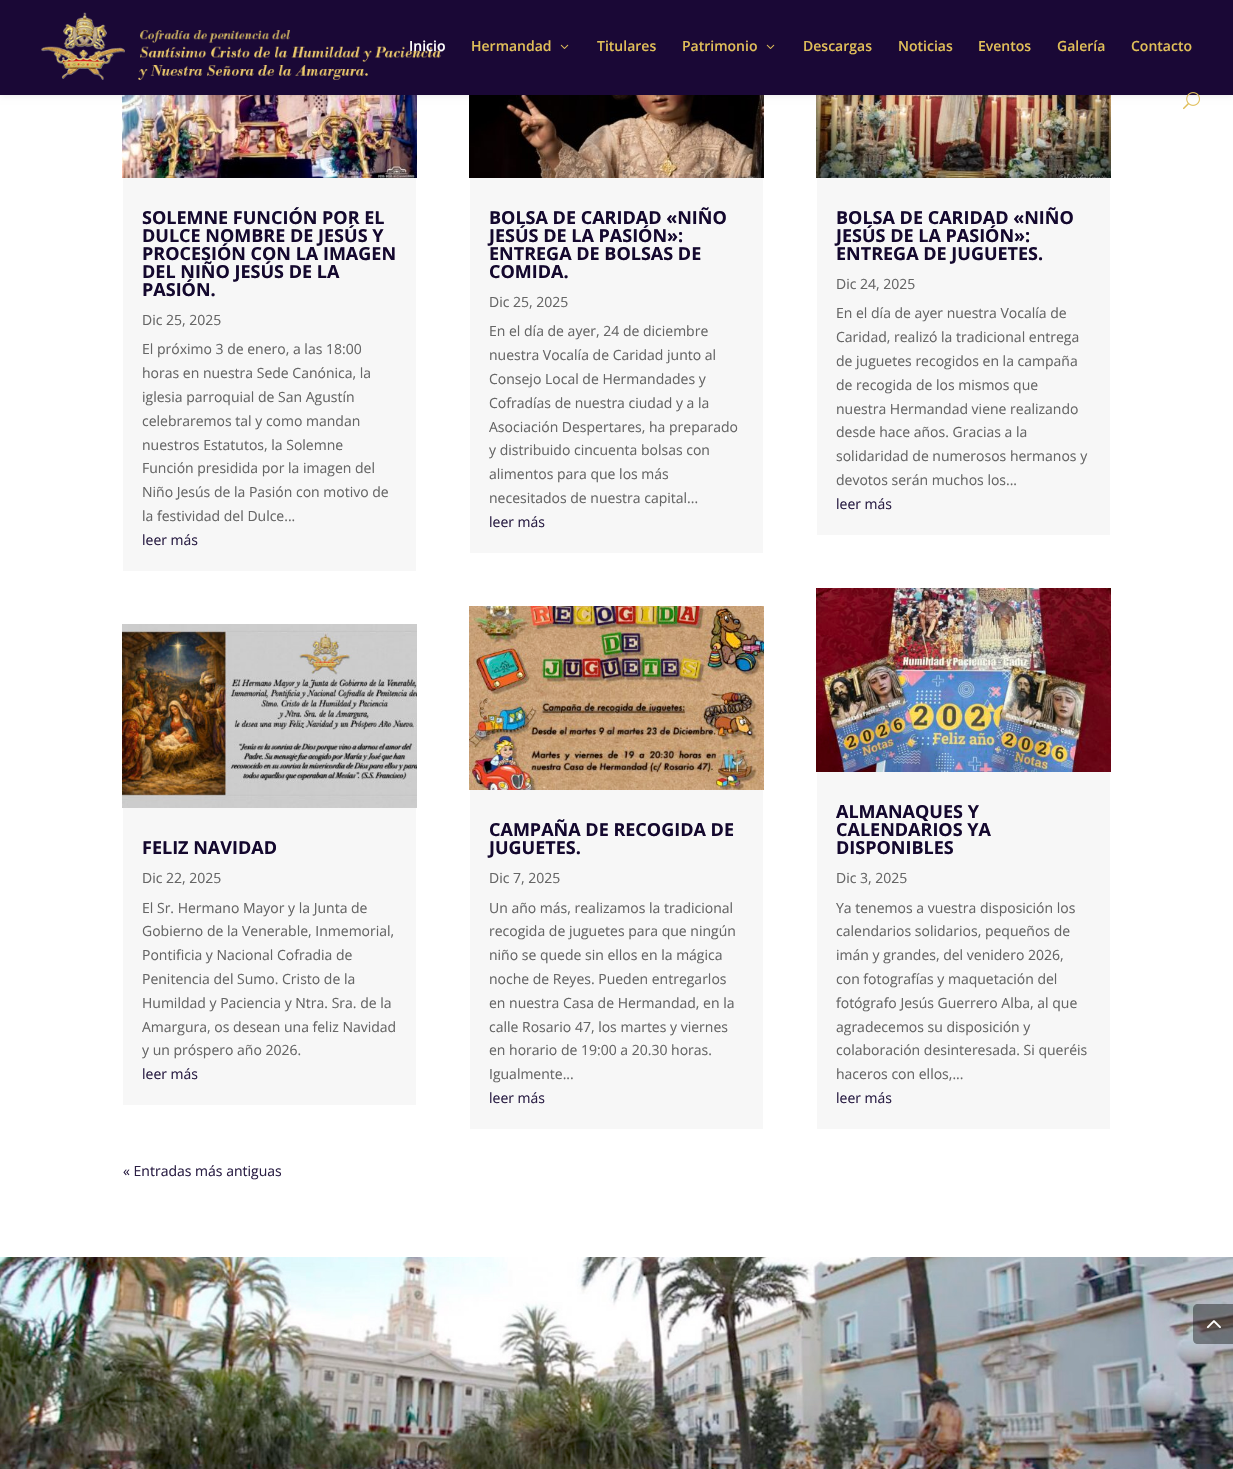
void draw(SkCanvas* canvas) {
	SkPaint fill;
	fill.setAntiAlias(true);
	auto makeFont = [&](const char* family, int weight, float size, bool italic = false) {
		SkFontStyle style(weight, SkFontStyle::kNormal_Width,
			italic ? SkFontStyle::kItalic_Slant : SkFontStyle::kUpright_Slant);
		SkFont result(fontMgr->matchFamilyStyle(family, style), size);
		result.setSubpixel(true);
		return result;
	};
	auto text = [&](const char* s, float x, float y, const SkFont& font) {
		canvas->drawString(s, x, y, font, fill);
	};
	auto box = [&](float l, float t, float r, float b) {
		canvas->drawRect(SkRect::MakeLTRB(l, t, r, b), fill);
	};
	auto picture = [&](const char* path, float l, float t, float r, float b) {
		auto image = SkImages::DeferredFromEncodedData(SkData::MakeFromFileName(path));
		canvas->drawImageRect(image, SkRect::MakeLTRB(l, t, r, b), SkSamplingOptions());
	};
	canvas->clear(0xFFFFFFFF);
	picture("image3.png", 122, 95, 417, 178);
	picture("image5.png", 469, 95, 764, 178);
	picture("image7.png", 816, 95, 1111, 178);
	fill.setColor(0x1A000000);
	fill.setMaskFilter(SkMaskFilter::MakeBlur(kNormal_SkBlurStyle, 3.5f));
	canvas->drawRect(SkRect::MakeLTRB(0, 0, 1233, 95), fill);
	fill.setMaskFilter(nullptr);
	fill.setColor(0xFF1A0836);
	box(0, 0, 1233, 95);
	picture("image0.png", 41, 12, 441, 80);
	picture("image1.png", 560, 44, 569, 49);
	picture("image1.png", 766, 44, 775, 49);
	picture("image2.png", 1183, 92, 1200, 110);
	fill.setColor(0xFFF7F7F7);
	box(123, 178, 416, 571);
	box(123, 808, 416, 1105);
	picture("image4.png", 122, 624, 417, 808);
	box(470, 178, 763, 553);
	box(470, 790, 763, 1129);
	picture("image6.png", 469, 606, 764, 790);
	box(817, 178, 1110, 535);
	box(817, 772, 1110, 1129);
	picture("image8.png", 816, 588, 1111, 772);
	picture("image9.png", 0, 1257, 1233, 1469);
	fill.setColor(0x66000000);
	canvas->drawPath(SkPathBuilder().moveTo(1198, 1304).lineTo(1233, 1304).lineTo(1233, 1344).lineTo(1198, 1344).cubicTo(1195, 1344, 1193, 1342, 1193, 1339).lineTo(1193, 1309).cubicTo(1193, 1306, 1195, 1304, 1198, 1304).close().detach(), fill);
	picture("image10.png", 1206, 1320, 1221, 1329);
	auto font1 = makeFont("Open Sans", 600, 14);
	fill.setColor(0xFFFFFFFF);
	text("Inicio", 409, 51, font1);
	fill.setColor(0xFFE0BE59);
	text("Hermandad", 471, 51, font1);
	text("Titulares", 597, 51, font1);
	text("Patrimonio", 682, 51, font1);
	text("Descargas", 803, 51, font1);
	text("Noticias", 898, 51, font1);
	text("Eventos", 978, 51, font1);
	text("Galería", 1057, 51, font1);
	text("Contacto", 1131, 51, font1);
	auto font2 = makeFont("Open Sans", 700, 18);
	fill.setColor(0xFF14082E);
	text("SOLEMNE FUNCIÓN POR EL", 142, 224, font2);
	text("DULCE NOMBRE DE JESÚS Y", 142, 242, font2);
	text("PROCESIÓN CON LA IMAGEN", 142, 260, font2);
	text("DEL NIÑO JESÚS DE LA", 142, 278, font2);
	text("PASIÓN.", 142, 296, font2);
	auto font3 = makeFont("Open Sans", 400, 14);
	fill.setColor(0xFF666666);
	text("Dic 25, 2025", 142, 325, font3);
	text("El próximo 3 de enero, a las 18:00", 142, 354, font3);
	text("horas en nuestra Sede Canónica, la", 142, 378, font3);
	text("iglesia parroquial de San Agustín", 142, 402, font3);
	text("celebraremos tal y como mandan", 142, 426, font3);
	text("nuestros Estatutos, la Solemne", 142, 450, font3);
	text("Función presidida por la imagen del", 142, 473, font3);
	text("Niño Jesús de la Pasión con motivo de", 142, 497, font3);
	text("la festividad del Dulce...", 142, 521, font3);
	fill.setColor(0xFF2A1E44);
	text("leer más", 142, 545, font3);
	fill.setColor(0xFF14082E);
	text("FELIZ NAVIDAD", 142, 854, font2);
	fill.setColor(0xFF666666);
	text("Dic 22, 2025", 142, 883, font3);
	text("El Sr. Hermano Mayor y la Junta de", 142, 913, font3);
	text("Gobierno de la Venerable, Inmemorial,", 142, 936, font3);
	text("Pontificia y Nacional Cofradia de", 142, 960, font3);
	text("Penitencia del Sumo. Cristo de la", 142, 984, font3);
	text("Humildad y Paciencia y Ntra. Sra. de la", 142, 1008, font3);
	text("Amargura, os desean una feliz Navidad", 142, 1032, font3);
	text("y un próspero año 2026.", 142, 1055, font3);
	fill.setColor(0xFF2A1E44);
	text("leer más", 142, 1079, font3);
	fill.setColor(0xFF14082E);
	text("BOLSA DE CARIDAD «NIÑO", 489, 224, font2);
	text("JESÚS DE LA PASIÓN»:", 489, 242, font2);
	text("ENTREGA DE BOLSAS DE", 489, 260, font2);
	text("COMIDA.", 489, 278, font2);
	fill.setColor(0xFF666666);
	text("Dic 25, 2025", 489, 307, font3);
	text("En el día de ayer, 24 de diciembre", 489, 336, font3);
	text("nuestra Vocalía de Caridad junto al", 489, 360, font3);
	text("Consejo Local de Hermandades y", 489, 384, font3);
	text("Cofradías de nuestra ciudad y a la", 489, 408, font3);
	text("Asociación Despertares, ha preparado", 489, 432, font3);
	text("y distribuido cincuenta bolsas con", 489, 455, font3);
	text("alimentos para que los más", 489, 479, font3);
	text("necesitados de nuestra capital...", 489, 503, font3);
	fill.setColor(0xFF2A1E44);
	text("leer más", 489, 527, font3);
	fill.setColor(0xFF14082E);
	text("CAMPAÑA DE RECOGIDA DE", 489, 836, font2);
	text("JUGUETES.", 489, 854, font2);
	fill.setColor(0xFF666666);
	text("Dic 7, 2025", 489, 883, font3);
	text("Un año más, realizamos la tradicional", 489, 913, font3);
	text("recogida de juguetes para que ningún", 489, 936, font3);
	text("niño se quede sin ellos en la mágica", 489, 960, font3);
	text("noche de Reyes. Pueden entregarlos", 489, 984, font3);
	text("en nuestra Casa de Hermandad, en la", 489, 1008, font3);
	text("calle Rosario 47, los martes y viernes", 489, 1032, font3);
	text("en horario de 19:00 a 20.30 horas.", 489, 1055, font3);
	text("Igualmente...", 489, 1079, font3);
	fill.setColor(0xFF2A1E44);
	text("leer más", 489, 1103, font3);
	fill.setColor(0xFF14082E);
	text("BOLSA DE CARIDAD «NIÑO", 836, 224, font2);
	text("JESÚS DE LA PASIÓN»:", 836, 242, font2);
	text("ENTREGA DE JUGUETES.", 836, 260, font2);
	fill.setColor(0xFF666666);
	text("Dic 24, 2025", 836, 289, font3);
	text("En el día de ayer nuestra Vocalía de", 836, 318, font3);
	text("Caridad, realizó la tradicional entrega", 836, 342, font3);
	text("de juguetes recogidos en la campaña", 836, 366, font3);
	text("de recogida de los mismos que", 836, 390, font3);
	text("nuestra Hermandad viene realizando", 836, 414, font3);
	text("desde hace años. Gracias a la", 836, 437, font3);
	text("solidaridad de numerosos hermanos y", 836, 461, font3);
	text("devotos serán muchos los...", 836, 485, font3);
	fill.setColor(0xFF2A1E44);
	text("leer más", 836, 509, font3);
	fill.setColor(0xFF14082E);
	text("ALMANAQUES Y", 836, 818, font2);
	text("CALENDARIOS YA", 836, 836, font2);
	text("DISPONIBLES", 836, 854, font2);
	fill.setColor(0xFF666666);
	text("Dic 3, 2025", 836, 883, font3);
	text("Ya tenemos a vuestra disposición los", 836, 913, font3);
	text("calendarios solidarios, pequeños de", 836, 936, font3);
	text("imán y grandes, del venidero 2026,", 836, 960, font3);
	text("con fotografías y maquetación del", 836, 984, font3);
	text("fotógrafo Jesús Guerrero Alba, al que", 836, 1008, font3);
	text("agradecemos su disposición y", 836, 1032, font3);
	text("colaboración desinteresada. Si queréis", 836, 1055, font3);
	text("haceros con ellos,...", 836, 1079, font3);
	fill.setColor(0xFF2A1E44);
	text("leer más", 836, 1103, font3);
	text("« Entradas más antiguas", 123, 1176, font3);
}
